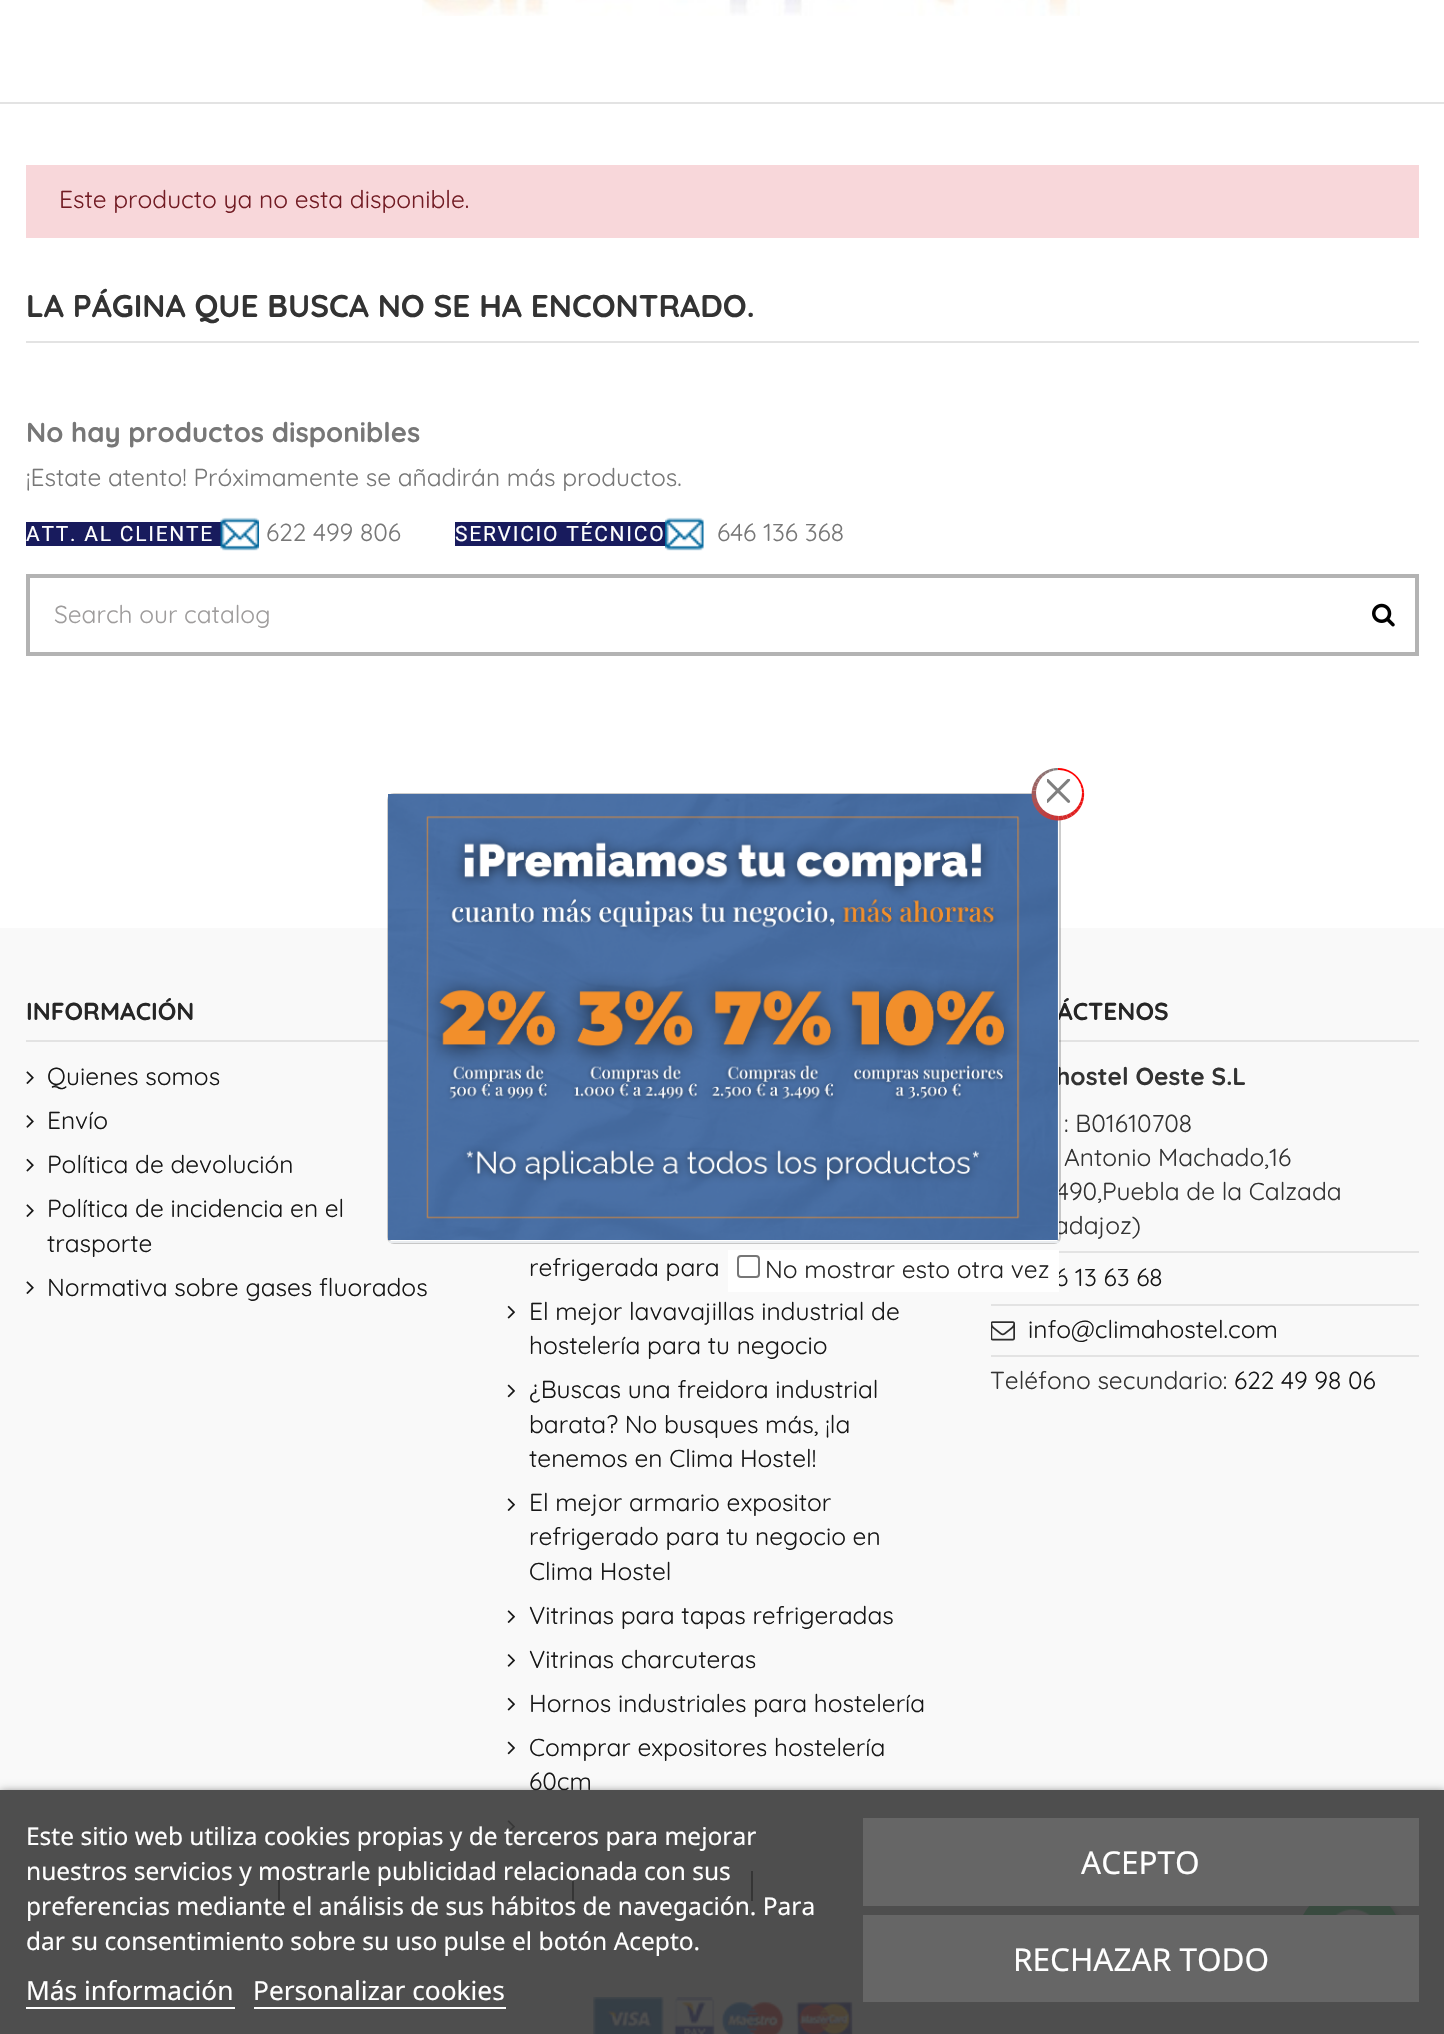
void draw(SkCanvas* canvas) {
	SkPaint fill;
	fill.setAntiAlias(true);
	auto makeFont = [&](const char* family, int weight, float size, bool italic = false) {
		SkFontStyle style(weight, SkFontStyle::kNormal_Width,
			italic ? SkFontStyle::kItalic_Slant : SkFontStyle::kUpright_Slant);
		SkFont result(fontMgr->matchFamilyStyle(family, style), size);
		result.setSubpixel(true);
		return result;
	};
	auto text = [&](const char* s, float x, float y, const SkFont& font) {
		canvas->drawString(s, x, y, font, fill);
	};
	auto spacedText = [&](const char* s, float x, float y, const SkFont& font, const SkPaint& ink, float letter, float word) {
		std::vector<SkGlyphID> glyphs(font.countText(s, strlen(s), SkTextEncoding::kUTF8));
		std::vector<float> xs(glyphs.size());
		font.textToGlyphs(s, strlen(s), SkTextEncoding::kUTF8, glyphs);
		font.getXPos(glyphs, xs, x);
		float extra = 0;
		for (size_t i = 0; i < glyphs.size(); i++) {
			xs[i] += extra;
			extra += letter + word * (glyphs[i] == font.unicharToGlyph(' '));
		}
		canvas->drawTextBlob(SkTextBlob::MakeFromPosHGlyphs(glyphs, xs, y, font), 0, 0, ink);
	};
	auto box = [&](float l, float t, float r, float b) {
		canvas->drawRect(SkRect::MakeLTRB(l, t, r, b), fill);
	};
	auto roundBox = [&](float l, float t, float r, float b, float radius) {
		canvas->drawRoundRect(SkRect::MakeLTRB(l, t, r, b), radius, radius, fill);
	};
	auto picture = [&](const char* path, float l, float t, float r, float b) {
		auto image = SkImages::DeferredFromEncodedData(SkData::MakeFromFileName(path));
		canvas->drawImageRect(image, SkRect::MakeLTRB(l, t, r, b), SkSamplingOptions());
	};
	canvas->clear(0xFFFFFFFF);
	fill.setColor(0xFFE3E3E3);
	box(0, 102, 1444, 104);
	picture("image0.png", 422, 0, 1080, 16);
	fill.setColor(0xFFF8D7DA);
	box(26, 165, 1419, 238);
	fill.setColor(0xFFE3E3E3);
	box(26, 341, 1419, 343);
	fill.setColor(0xFF181B5D);
	box(26, 522, 221, 546);
	picture("image1.png", 220, 517, 259, 551);
	box(455, 522, 665, 546);
	picture("image2.png", 665, 517, 704, 551);
	fill.setStyle(SkPaint::kStroke_Style);
	fill.setStrokeWidth(4);
	fill.setColor(0xFFB3B3B3);
	canvas->drawRect(SkRect::MakeLTRB(28, 576, 1417, 654), fill);
	picture("image3.png", 1372, 603, 1395, 627);
	fill.setStyle(SkPaint::kFill_Style);
	fill.setColor(0xFFF9F9F9);
	box(0, 928, 1444, 1971);
	fill.setColor(0xFFE3E3E3);
	box(26, 1040, 388, 1042);
	picture("image4.png", 26, 1071, 34, 1084);
	picture("image5.png", 26, 1115, 34, 1128);
	picture("image6.png", 26, 1158, 34, 1172);
	picture("image4.png", 26, 1204, 34, 1217);
	picture("image4.png", 26, 1281, 34, 1294);
	box(1059, 1040, 1419, 1042);
	box(1059, 1251, 1419, 1253);
	box(991, 1304, 1419, 1306);
	picture("image7.png", 991, 1321, 1015, 1341);
	box(991, 1355, 1419, 1357);
	picture("image8.png", 507, 1305, 515, 1319);
	picture("image9.png", 507, 1384, 515, 1398);
	picture("image10.png", 507, 1498, 515, 1511);
	picture("image10.png", 507, 1610, 515, 1623);
	picture("image11.png", 507, 1654, 515, 1667);
	picture("image8.png", 507, 1697, 515, 1711);
	picture("image9.png", 507, 1741, 515, 1755);
	picture("image10.png", 507, 1820, 515, 1833);
	fill.setColor(0xFF000000);
	box(278, 1871, 280, 1901);
	box(572, 1871, 574, 1901);
	box(751, 1871, 753, 1901);
	picture("image12.png", 593, 1997, 853, 2034);
	fill.setColor(0xFF999999);
	fill.setMaskFilter(SkMaskFilter::MakeBlur(kNormal_SkBlurStyle, 2.5f));
	canvas->drawRoundRect(SkRect::MakeLTRB(1300, 1890, 1405, 1995), 52.5f, 52.5f, fill);
	fill.setMaskFilter(nullptr);
	fill.setColor(0xFF25D366);
	canvas->drawCircle(1349.5f, 1939.5f, 52.5f, fill);
	picture("image16.png", 1335, 1909, 1371, 1915);
	canvas->save();
	canvas->clipPath(SkPathBuilder(SkPathFillType::kEvenOdd).moveTo(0, 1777).lineTo(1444, 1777).lineTo(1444, 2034).lineTo(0, 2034).close().moveTo(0, 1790).lineTo(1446, 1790).lineTo(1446, 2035).lineTo(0, 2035).close().detach(), true);
	fill.setColor(0xFF707070);
	fill.setMaskFilter(SkMaskFilter::MakeBlur(kNormal_SkBlurStyle, 4.5f));
	canvas->drawRect(SkRect::MakeLTRB(0, 1792, 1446, 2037), fill);
	fill.setMaskFilter(nullptr);
	canvas->restore();
	auto font1 = makeFont("Quicksand", 400, 24.5f);
	fill.setColor(0xFF721C24);
	text("Este producto ya no esta disponible.", 59, 208, font1);
	auto font2 = makeFont("Quicksand", 700, 31.5f);
	fill.setColor(0xFF333333);
	text("LA PÁGINA QUE BUSCA NO SE HA ENCONTRADO.", 26, 317, font2);
	auto font3 = makeFont("Quicksand", 700, 27.5f);
	fill.setColor(0xFF777777);
	text("No hay productos disponibles", 26, 442, font3);
	text("¡Estate atento! Próximamente se añadirán más productos.", 26, 486, font1);
	auto font4 = makeFont("Roboto", 400, 21);
	fill.setColor(0xFFFFFFFF);
	spacedText("ATT. AL CLIENTE", 26, 541, font4, fill, 1.75f, 0);
	fill.setColor(0xFF777777);
	text("622 499 806", 266, 541, font1);
	fill.setColor(0xFFFFFFFF);
	spacedText("SERVICIO TÉCNICO", 455, 541, font4, fill, 1.75f, 0);
	fill.setColor(0xFF777777);
	text("646 136 368", 717, 541, font1);
	fill.setColor(0xFF9E9C9C);
	text("Search our catalog", 54, 623, font1);
	auto font5 = makeFont("Quicksand", 700, 24.5f);
	fill.setColor(0xFF262626);
	text("INFORMACIÓN", 26, 1020, font5);
	fill.setColor(0xFF171717);
	text("Quienes somos", 47, 1085, font1);
	text("Envío", 47, 1129, font1);
	text("Política de devolución", 47, 1173, font1);
	text("Política de incidencia en el", 47, 1217, font1);
	text("trasporte", 47, 1252, font1);
	text("Normativa sobre gases fluorados", 47, 1296, font1);
	fill.setColor(0xFF262626);
	text("ÁCTENOS", 1057, 1020, font5);
	fill.setColor(0xFF333333);
	text("hostel Oeste S.L", 1056, 1085, font5);
	text(": B01610708", 1064, 1132, font1);
	text("Antonio Machado,16", 1064, 1166, font1);
	text("490,Puebla de la Calzada", 1056, 1200, font1);
	text("adajoz)", 1054, 1234, font1);
	fill.setColor(0xFF171717);
	text("6 13 63 68", 1055, 1286, font1);
	text("info@climahostel.com", 1028, 1338, font1);
	fill.setColor(0xFF333333);
	text("Teléfono secundario:", 990, 1389, font1);
	fill.setColor(0xFF171717);
	text("622 49 98 06", 1234, 1389, font1);
	text("refrigerada para", 529, 1276, font1);
	text("El mejor lavavajillas industrial de", 529, 1320, font1);
	text("hostelería para tu negocio", 529, 1354, font1);
	text("¿Buscas una freidora industrial", 529, 1398, font1);
	text("barata? No busques más, ¡la", 529, 1433, font1);
	text("tenemos en Clima Hostel!", 529, 1467, font1);
	text("El mejor armario expositor", 529, 1511, font1);
	text("refrigerado para tu negocio en", 529, 1545, font1);
	text("Clima Hostel", 529, 1580, font1);
	text("Vitrinas para tapas refrigeradas", 529, 1624, font1);
	text("Vitrinas charcuteras", 529, 1668, font1);
	text("Hornos industriales para hostelería", 529, 1712, font1);
	text("Comprar expositores hostelería", 529, 1756, font1);
	text("60cm", 529, 1790, font1);
	fill.setColor(0xE63B3B3B);
	box(0, 1790, 1444, 2034);
	auto font6 = makeFont("Noto Sans", 400, 24.5f);
	fill.setColor(0xFFFFFFFF);
	text("Este sitio web utiliza cookies propias y de terceros para mejorar", 26, 1845, font6);
	text("nuestros servicios y mostrarle publicidad relacionada con sus", 26, 1880, font6);
	text("preferencias mediante el análisis de sus hábitos de navegación. Para", 26, 1915, font6);
	text("dar su consentimiento sobre su uso pulse el botón Acepto.", 26, 1950, font6);
	auto font7 = makeFont("Noto Sans", 400, 26.25f);
	text("Más información", 26, 2000, font7);
	box(26, 2007, 235, 2009);
	text("Personalizar cookies", 253, 2000, font7);
	box(254, 2007, 506, 2009);
	fill.setColor(0xFF666666);
	box(863, 1818, 1419, 1906);
	auto font8 = makeFont("Noto Sans", 400, 31.5f);
	fill.setColor(0xFFFFFFFF);
	text("ACEPTO", 1081, 1874, font8);
	fill.setColor(0xFF666666);
	box(863, 1915, 1419, 2002);
	fill.setColor(0xFFFFFFFF);
	text("RECHAZAR TODO", 1013, 1971, font8);
	roundBox(389, 795, 1059, 1243, 5);
	fill.setStyle(SkPaint::kStroke_Style);
	fill.setStrokeWidth(2);
	fill.setColor(0x33000000);
	canvas->drawRoundRect(SkRect::MakeLTRB(388, 794, 1060, 1243), 6, 6, fill);
	picture("image15.png", 388, 794, 1058, 1240);
	picture("image13.png", 1031, 768, 1085, 821);
	fill.setStyle(SkPaint::kFill_Style);
	fill.setColor(0xFFFFFFFF);
	canvas->drawCircle(1059, 793, 23, fill);
	picture("image14.png", 1047, 779, 1071, 803);
	fill.setColor(0xFFE9ECEF);
	box(389, 1241, 1059, 1243);
	fill.setColor(0xFFFFFFFF);
	box(728, 1250, 1059, 1292);
	fill.setStyle(SkPaint::kStroke_Style);
	fill.setColor(0xFF767676);
	canvas->drawRoundRect(SkRect::MakeLTRB(738, 1256, 759, 1277), 3, 3, fill);
	fill.setStyle(SkPaint::kFill_Style);
	fill.setColor(0xFF262626);
	text("No mostrar esto otra vez", 765, 1278, font1);
}
